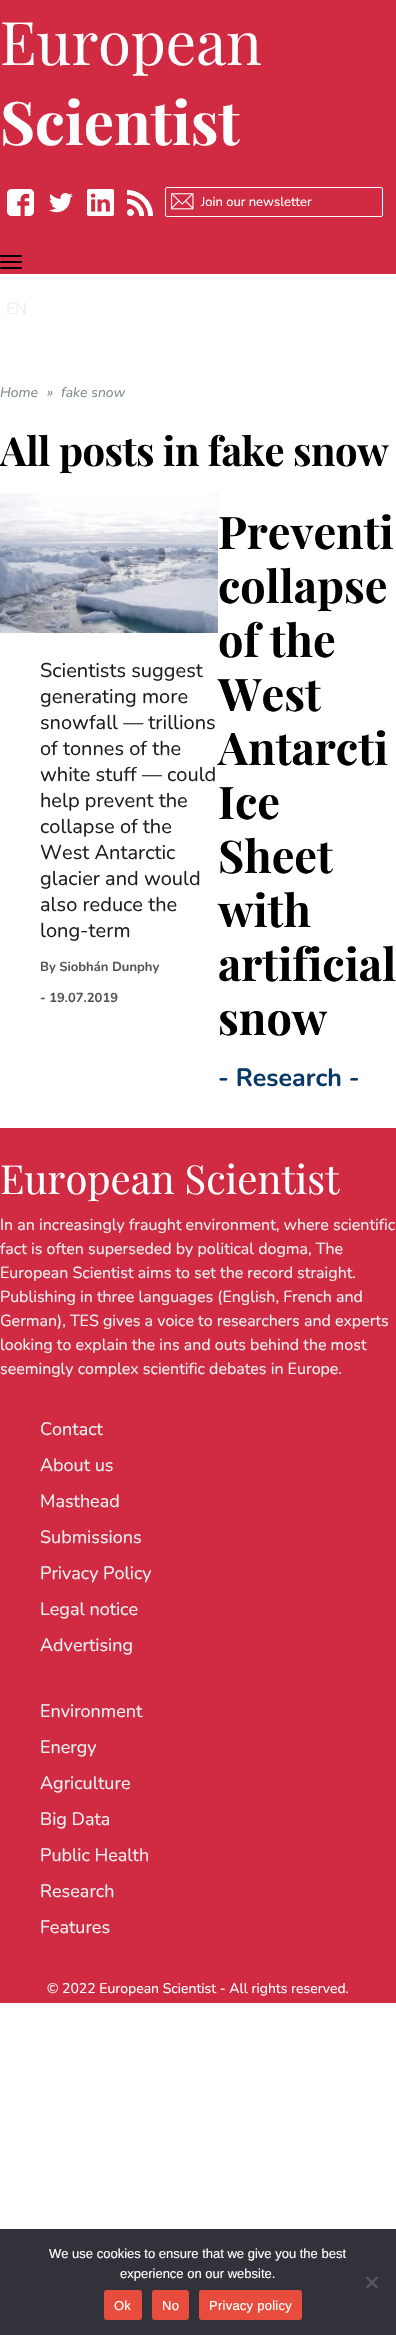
void draw(SkCanvas* canvas) {
	SkPaint fill;
	fill.setAntiAlias(true);
	auto makeFont = [&](const char* family, int weight, float size, bool italic = false) {
		SkFontStyle style(weight, SkFontStyle::kNormal_Width,
			italic ? SkFontStyle::kItalic_Slant : SkFontStyle::kUpright_Slant);
		SkFont result(fontMgr->matchFamilyStyle(family, style), size);
		result.setSubpixel(true);
		return result;
	};
	auto text = [&](const char* s, float x, float y, const SkFont& font) {
		canvas->drawString(s, x, y, font, fill);
	};
	auto spacedText = [&](const char* s, float x, float y, const SkFont& font, const SkPaint& ink, float letter, float word) {
		std::vector<SkGlyphID> glyphs(font.countText(s, strlen(s), SkTextEncoding::kUTF8));
		std::vector<float> xs(glyphs.size());
		font.textToGlyphs(s, strlen(s), SkTextEncoding::kUTF8, glyphs);
		font.getXPos(glyphs, xs, x);
		float extra = 0;
		for (size_t i = 0; i < glyphs.size(); i++) {
			xs[i] += extra;
			extra += letter + word * (glyphs[i] == font.unicharToGlyph(' '));
		}
		canvas->drawTextBlob(SkTextBlob::MakeFromPosHGlyphs(glyphs, xs, y, font), 0, 0, ink);
	};
	auto box = [&](float l, float t, float r, float b) {
		canvas->drawRect(SkRect::MakeLTRB(l, t, r, b), fill);
	};
	auto roundBox = [&](float l, float t, float r, float b, float radius) {
		canvas->drawRoundRect(SkRect::MakeLTRB(l, t, r, b), radius, radius, fill);
	};
	auto picture = [&](const char* path, float l, float t, float r, float b) {
		auto image = SkImages::DeferredFromEncodedData(SkData::MakeFromFileName(path));
		canvas->drawImageRect(image, SkRect::MakeLTRB(l, t, r, b), SkSamplingOptions());
	};
	canvas->clear(0xFFFFFFFF);
	fill.setColor(0xFFD02B43);
	box(0, 0, 396, 274);
	picture("image0.png", 7, 189, 34, 216);
	picture("image1.png", 49, 193, 73, 213);
	picture("image2.png", 87, 189, 114, 216);
	picture("image3.png", 127, 190, 153, 216);
	picture("image4.png", 171, 193, 194, 210);
	fill.setStyle(SkPaint::kStroke_Style);
	fill.setStrokeWidth(1);
	fill.setColor(0xFFFFFFFF);
	canvas->drawRoundRect(SkRect::MakeLTRB(165.5f, 187.5f, 382.5f, 216.5f), 1.5f, 1.5f, fill);
	fill.setStyle(SkPaint::kFill_Style);
	fill.setColor(0xFF000000);
	roundBox(0, 255, 22, 257, 1);
	roundBox(0, 261, 22, 263, 1);
	roundBox(0, 267, 22, 269, 1);
	picture("image5.png", 0, 493, 218, 633);
	fill.setColor(0xFFD02B43);
	box(0, 1128, 396, 2003);
	fill.setColor(0xFF32323A);
	box(0, 2229, 396, 2335);
	fill.setColor(0xFF59595D);
	canvas->drawPath(SkPathBuilder().moveTo(376.5f, 2276.5f).lineTo(378, 2278).lineTo(367.5f, 2288.5f).lineTo(366, 2287).close().detach(), fill);
	canvas->drawPath(SkPathBuilder().moveTo(366, 2278).lineTo(367.5f, 2276.5f).lineTo(378, 2287).lineTo(376.5f, 2288.5f).close().detach(), fill);
	fill.setColor(0xFFE74C3C);
	roundBox(104, 2290, 142, 2320, 3);
	roundBox(152, 2290, 189, 2320, 3);
	roundBox(199, 2290, 302, 2320, 3);
	auto font1 = makeFont("Playfair Display", 400, 60);
	fill.setColor(0xFFFFFFFF);
	text("European", 0, 65, font1);
	auto font2 = makeFont("Playfair Display", 700, 60);
	text("Scientist", 0, 145, font2);
	auto font3 = makeFont("Nunito", 400, 13);
	text("Join our newsletter", 201, 206, font3);
	auto font4 = makeFont("Nunito", 400, 16);
	fill.setColor(0xFFECF0F1);
	text("EN", 6, 314, font4);
	auto font5 = makeFont("Nunito", 400, 14, true);
	fill.setColor(0xFF7F8C8D);
	text("Home", 0, 397, font5);
	text("»", 47, 397, font5);
	text("fake snow", 61, 397, font5);
	auto font6 = makeFont("Playfair Display", 700, 40);
	fill.setColor(0xFF000000);
	spacedText("All posts in fake snow", 0, 466, font6, fill, -0.5f, 0);
	auto font7 = makeFont("Playfair Display", 700, 45);
	text("Preventi", 218, 549, font7);
	text("collapse", 218, 603, font7);
	text("of the", 218, 657, font7);
	text("West", 218, 711, font7);
	text("Antarcti", 218, 765, font7);
	text("Ice", 218, 819, font7);
	text("Sheet", 218, 873, font7);
	text("with", 218, 927, font7);
	text("artificial", 218, 981, font7);
	text("snow", 218, 1035, font7);
	auto font8 = makeFont("Nunito", 700, 25);
	fill.setColor(0xFF093969);
	text("- Research -", 218, 1086, font8);
	auto font9 = makeFont("Nunito", 400, 20);
	fill.setColor(0xFF1E1E1E);
	text("Scientists suggest", 40, 677, font9);
	text("generating more", 40, 703, font9);
	text("snowfall — trillions", 40, 729, font9);
	text("of tonnes of the", 40, 755, font9);
	text("white stuff — could", 40, 781, font9);
	text("help prevent the", 40, 807, font9);
	text("collapse of the", 40, 833, font9);
	text("West Antarctic", 40, 859, font9);
	text("glacier and would", 40, 885, font9);
	text("also reduce the", 40, 911, font9);
	text("long-term", 40, 937, font9);
	auto font10 = makeFont("Nunito", 700, 13);
	fill.setColor(0xFF565656);
	text("By Siobhán Dunphy", 40, 971, font10);
	text("- 19.07.2019", 40, 1002, font10);
	auto font11 = makeFont("Playfair Display", 400, 40);
	fill.setColor(0xFFFFFFFF);
	text("European Scientist", 0, 1194, font11);
	fill.setColor(0xFFECF0F1);
	text("In an increasingly fraught environment, where scientific", 0, 1230, font4);
	text("fact is often superseded by political dogma, The", 0, 1254, font4);
	text("European Scientist aims to set the record straight.", 0, 1278, font4);
	text("Publishing in three languages (English, French and", 0, 1302, font4);
	text("German), TES gives a voice to researchers and experts", 0, 1326, font4);
	text("looking to explain the ins and outs behind the most", 0, 1350, font4);
	text("seemingly complex scientific debates in Europe.", 0, 1374, font4);
	auto font12 = makeFont("Nunito", 400, 18);
	text("Contact", 40, 1435, font12);
	text("About us", 40, 1471, font12);
	text("Masthead", 40, 1507, font12);
	text("Submissions", 40, 1543, font12);
	text("Privacy Policy", 40, 1579, font12);
	text("Legal notice", 40, 1615, font12);
	text("Advertising", 40, 1651, font12);
	text("Environment", 40, 1717, font12);
	text("Energy", 40, 1753, font12);
	text("Agriculture", 40, 1789, font12);
	text("Big Data", 40, 1825, font12);
	text("Public Health", 40, 1861, font12);
	text("Research", 40, 1897, font12);
	text("Features", 40, 1933, font12);
	auto font13 = makeFont("Nunito", 400, 14);
	fill.setColor(0xFFFFFFFF);
	text("© 2022 European Scientist - All rights reserved.", 47, 1993, font13);
	auto font14 = makeFont("Liberation Sans", 400, 13);
	text("We use cookies to ensure that we give you the best", 49, 2258, font14);
	text("experience on our website.", 120, 2278, font14);
	spacedText("Ok", 114, 2310, font14, fill, 0.25f, 0);
	spacedText("No", 162, 2310, font14, fill, 0.25f, 0);
	spacedText("Privacy policy", 209, 2310, font14, fill, 0.25f, 0);
}
